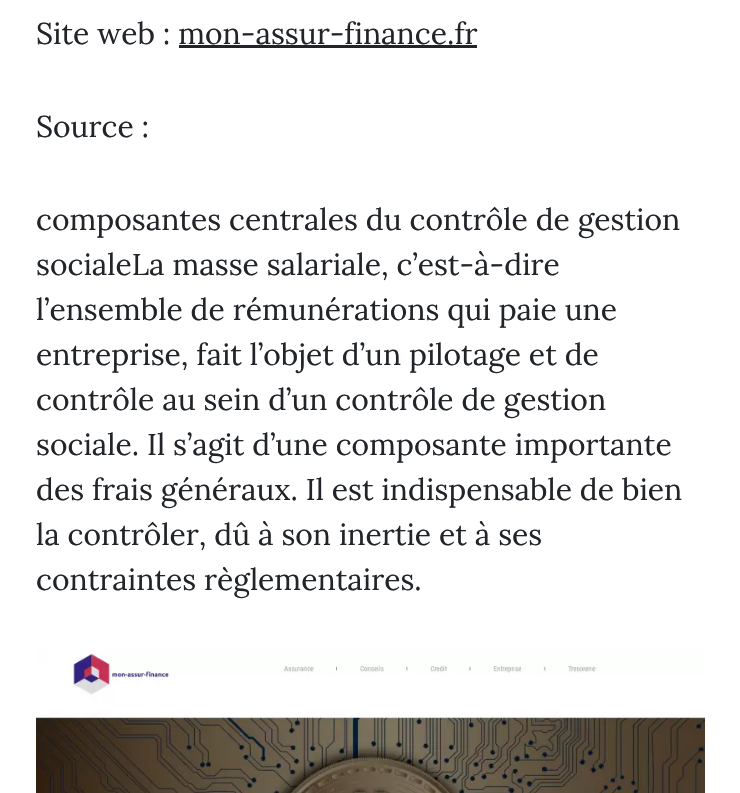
void draw(SkCanvas* canvas) {
	SkPaint fill;
	fill.setAntiAlias(true);
	auto makeFont = [&](const char* family, int weight, float size, bool italic = false) {
		SkFontStyle style(weight, SkFontStyle::kNormal_Width,
			italic ? SkFontStyle::kItalic_Slant : SkFontStyle::kUpright_Slant);
		SkFont result(fontMgr->matchFamilyStyle(family, style), size);
		result.setSubpixel(true);
		return result;
	};
	auto text = [&](const char* s, float x, float y, const SkFont& font) {
		canvas->drawString(s, x, y, font, fill);
	};
	auto box = [&](float l, float t, float r, float b) {
		canvas->drawRect(SkRect::MakeLTRB(l, t, r, b), fill);
	};
	auto picture = [&](const char* path, float l, float t, float r, float b) {
		auto image = SkImages::DeferredFromEncodedData(SkData::MakeFromFileName(path));
		canvas->drawImageRect(image, SkRect::MakeLTRB(l, t, r, b), SkSamplingOptions());
	};
	canvas->clear(0xFFFFFFFF);
	fill.setColor(0xFF212529);
	box(179, 45, 477, 48);
	picture("image0.png", 36, 649, 705, 793);
	auto font1 = makeFont("Lora", 400, 30);
	text("Site web : mon-assur-finance.fr", 36, 44, font1);
	text("Source :", 36, 137, font1);
	text("composantes centrales du contrôle de gestion", 36, 230, font1);
	text("socialeLa masse salariale, c’est-à-dire", 36, 275, font1);
	text("l’ensemble de rémunérations qui paie une", 36, 320, font1);
	text("entreprise, fait l’objet d’un pilotage et de", 36, 365, font1);
	text("contrôle au sein d’un contrôle de gestion", 36, 410, font1);
	text("sociale. Il s’agit d’une composante importante", 36, 455, font1);
	text("des frais généraux. Il est indispensable de bien", 36, 500, font1);
	text("la contrôler, dû à son inertie et à ses", 36, 545, font1);
	text("contraintes règlementaires.", 36, 590, font1);
}
